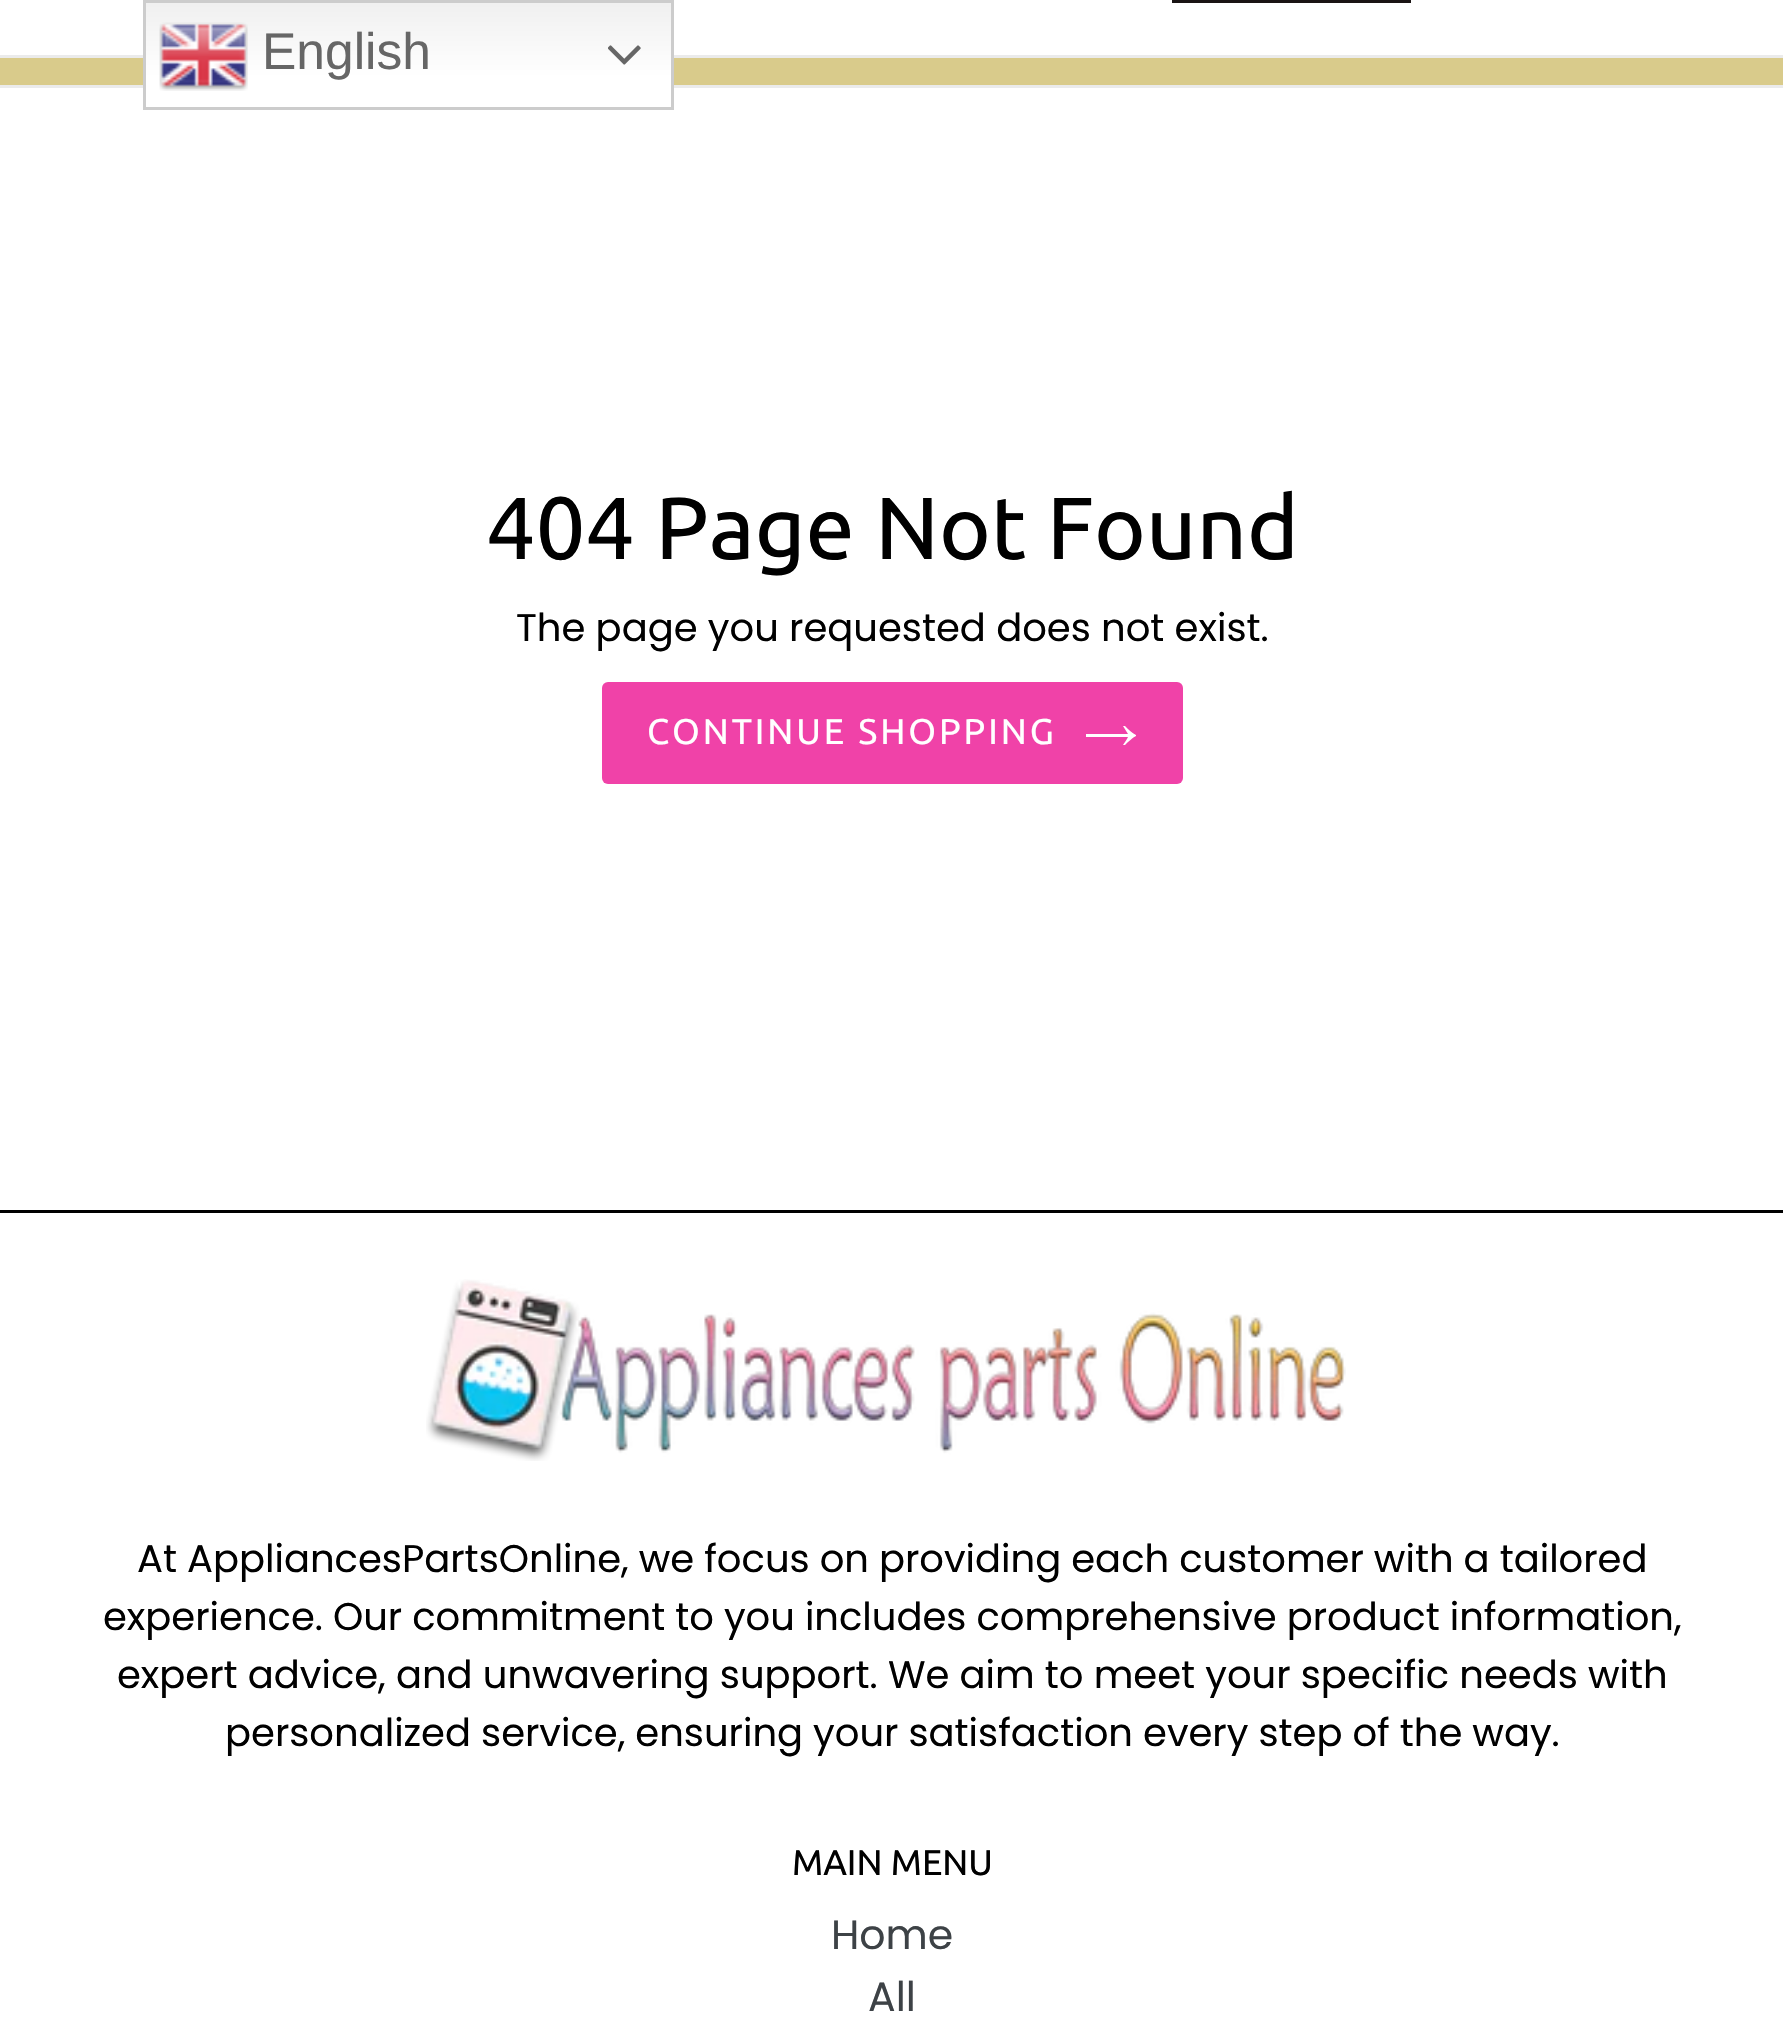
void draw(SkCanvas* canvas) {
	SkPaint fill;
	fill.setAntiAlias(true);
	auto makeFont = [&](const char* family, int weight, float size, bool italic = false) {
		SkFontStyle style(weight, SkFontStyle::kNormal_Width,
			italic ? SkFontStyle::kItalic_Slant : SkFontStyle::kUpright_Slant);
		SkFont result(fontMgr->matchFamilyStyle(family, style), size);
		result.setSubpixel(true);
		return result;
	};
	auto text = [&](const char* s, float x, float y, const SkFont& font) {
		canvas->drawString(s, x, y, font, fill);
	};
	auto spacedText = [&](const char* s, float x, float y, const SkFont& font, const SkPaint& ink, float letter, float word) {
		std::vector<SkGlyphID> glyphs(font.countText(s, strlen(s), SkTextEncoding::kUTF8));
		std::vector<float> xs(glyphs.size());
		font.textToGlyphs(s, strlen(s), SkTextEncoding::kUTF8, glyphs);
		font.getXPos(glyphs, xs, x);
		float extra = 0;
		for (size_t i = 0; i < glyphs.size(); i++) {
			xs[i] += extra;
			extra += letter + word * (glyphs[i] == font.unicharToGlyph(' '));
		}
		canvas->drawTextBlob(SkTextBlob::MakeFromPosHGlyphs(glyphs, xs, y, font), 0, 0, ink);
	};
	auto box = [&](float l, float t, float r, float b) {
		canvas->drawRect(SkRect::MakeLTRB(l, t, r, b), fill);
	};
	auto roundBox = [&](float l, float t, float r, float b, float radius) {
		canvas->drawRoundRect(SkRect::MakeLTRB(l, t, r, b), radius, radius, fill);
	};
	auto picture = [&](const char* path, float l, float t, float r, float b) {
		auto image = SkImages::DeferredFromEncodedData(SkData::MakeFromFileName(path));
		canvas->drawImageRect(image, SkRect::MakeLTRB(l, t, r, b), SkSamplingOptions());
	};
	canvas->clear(0xFFFFFFFF);
	fill.setColor(0xFFEBEBEB);
	box(0, 55, 1783, 58);
	fill.setStyle(SkPaint::kStroke_Style);
	fill.setStrokeWidth(6);
	fill.setColor(0xFF1A1414);
	canvas->drawRect(SkRect::MakeLTRB(1175, -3, 1408, 0), fill);
	fill.setStyle(SkPaint::kFill_Style);
	fill.setColor(0xFFD9CB8B);
	box(0, 58, 1783, 85);
	fill.setColor(0xFFEBEBEB);
	box(0, 85, 1783, 88);
	{
		const SkColor colors[] = {0xFFEFEFEF, 0xFFFFFFFF};
		const float stops[] = {0, 0.7f};
		const SkPoint ends[] = {{408, 0}, {408, 110}};
		fill.setShader(SkGradientShader::MakeLinear(ends, colors, stops, 2, SkTileMode::kClamp));
		fill.setAlpha(255);
	}
	box(146, 3, 671, 88);
	fill.setStyle(SkPaint::kStroke_Style);
	fill.setStrokeWidth(3);
	fill.setShader(nullptr);
	fill.setColor(0xFFCCCCCC);
	canvas->drawRect(SkRect::MakeLTRB(144.5f, 1.5f, 672.5f, 108.5f), fill);
	picture("image0.png", 159, 22, 248, 91);
	picture("image1.png", 608, 45, 641, 65);
	fill.setStyle(SkPaint::kFill_Style);
	fill.setColor(0xFFF042A8);
	roundBox(602, 682, 1183, 784, 6);
	fill.setColor(0xFFFFFFFF);
	canvas->drawPath(SkPathBuilder(SkPathFillType::kEvenOdd).moveTo(1125, 726).cubicTo(1128, 729, 1132, 733, 1136, 735).lineTo(1136, 736).cubicTo(1132, 738, 1128, 742, 1125, 745).lineTo(1123, 745).cubicTo(1125, 742, 1127, 739, 1128, 737).lineTo(1086, 737).lineTo(1086, 734).lineTo(1128, 734).lineTo(1123, 726).close().detach(), fill);
	fill.setColor(0xFF000000);
	box(0, 1210, 1783, 1213);
	picture("image2.png", 426, 1279, 1346, 1461);
	auto font1 = makeFont("Liberation Sans", 400, 51.5f);
	fill.setColor(0xFF666666);
	text("English", 262, 69, font1);
	auto font2 = makeFont("Ubuntu", 400, 88);
	fill.setColor(0xFF000000);
	text("404 Page Not Found", 486, 559, font2);
	auto font3 = makeFont("Poppins", 400, 38.5f);
	text("The page you requested does not exist.", 516, 641, font3);
	auto font4 = makeFont("Ubuntu", 400, 35.75f);
	fill.setColor(0xFFFFFFFF);
	spacedText("CONTINUE SHOPPING", 647, 744, font4, fill, 2.9f, 0);
	fill.setColor(0xFF000000);
	spacedText("At AppliancesPartsOnline, we focus on providing each customer with a tailored", 137, 1572, font3, fill, 0, -0.25f);
	spacedText("experience. Our commitment to you includes comprehensive product information,", 103, 1630, font3, fill, 0, -0.25f);
	spacedText("expert advice, and unwavering support. We aim to meet your specific needs with", 117, 1688, font3, fill, 0, -0.1f);
	spacedText("personalized service, ensuring your satisfaction every step of the way.", 225, 1746, font3, fill, 0, -0.25f);
	text("MAIN MENU", 792, 1875, font4);
	auto font5 = makeFont("Poppins", 400, 41);
	fill.setColor(0xFF3D4246);
	text("Home", 831, 1949, font5);
	text("All", 868, 2011, font5);
}
